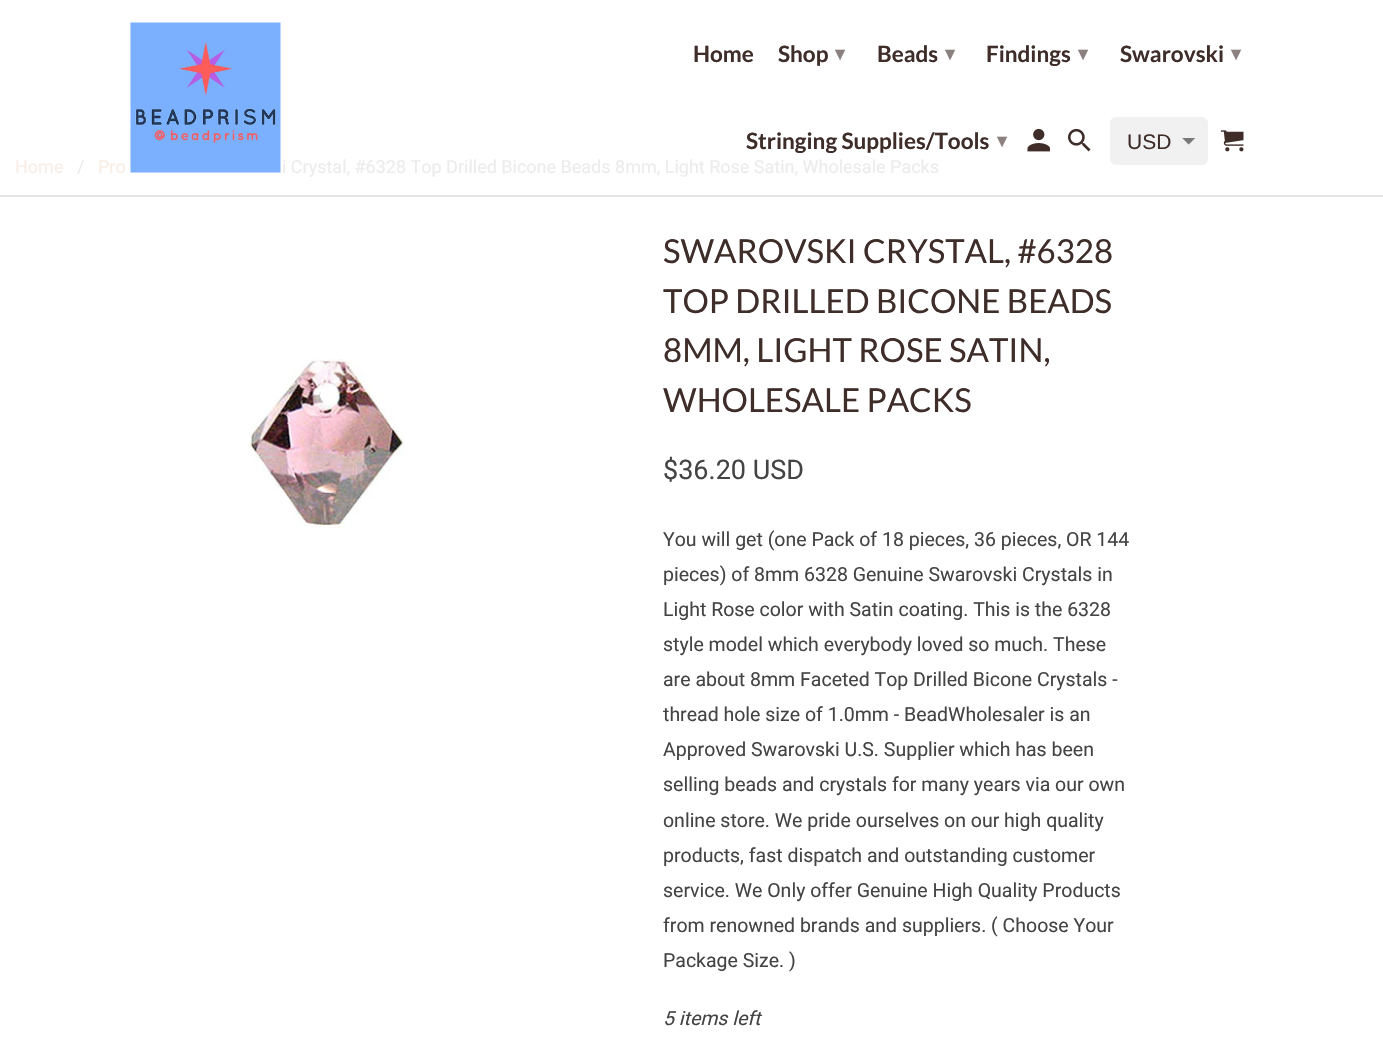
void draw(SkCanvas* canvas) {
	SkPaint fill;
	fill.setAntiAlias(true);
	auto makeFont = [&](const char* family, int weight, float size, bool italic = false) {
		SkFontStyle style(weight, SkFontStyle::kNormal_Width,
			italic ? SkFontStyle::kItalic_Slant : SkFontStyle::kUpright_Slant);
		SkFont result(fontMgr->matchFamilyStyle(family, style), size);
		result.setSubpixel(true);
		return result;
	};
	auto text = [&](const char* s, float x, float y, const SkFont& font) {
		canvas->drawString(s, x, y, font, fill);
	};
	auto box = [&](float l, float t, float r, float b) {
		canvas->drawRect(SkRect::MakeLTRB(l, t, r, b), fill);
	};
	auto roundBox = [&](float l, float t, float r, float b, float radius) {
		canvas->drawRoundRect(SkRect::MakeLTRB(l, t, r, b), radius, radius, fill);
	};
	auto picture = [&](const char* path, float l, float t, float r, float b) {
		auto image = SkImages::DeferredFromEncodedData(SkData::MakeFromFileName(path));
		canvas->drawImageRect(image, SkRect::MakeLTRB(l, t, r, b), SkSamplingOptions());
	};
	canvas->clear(0xFFFFFFFF);
	fill.setColor(0xFFE5E5E5);
	box(0, 195, 1383, 197);
	picture("image0.png", 130, 22, 281, 173);
	picture("image1.png", 1027, 128, 1050, 152);
	picture("image2.png", 1068, 128, 1091, 152);
	fill.setColor(0xFFF1F1F1);
	roundBox(1110, 117, 1208, 165, 6);
	picture("image3.png", 1182, 138, 1196, 145);
	picture("image4.png", 1221, 130, 1244, 152);
	picture("image5.png", 249, 359, 404, 528);
	auto font1 = makeFont("Lato", 700, 22.5f);
	fill.setColor(0xFF3E2D29);
	text("Home", 693, 62, font1);
	text("Shop", 778, 62, font1);
	auto font2 = makeFont("DejaVu Sans", 700, 19);
	fill.setColor(0xFF8B817F);
	text("▾", 835, 60, font2);
	fill.setColor(0xFF3E2D29);
	text("Beads", 877, 62, font1);
	fill.setColor(0xFF8B817F);
	text("▾", 945, 60, font2);
	fill.setColor(0xFF3E2D29);
	text("Findings", 986, 62, font1);
	fill.setColor(0xFF8B817F);
	text("▾", 1078, 60, font2);
	fill.setColor(0xFF3E2D29);
	text("Swarovski", 1120, 62, font1);
	fill.setColor(0xFF8B817F);
	text("▾", 1231, 60, font2);
	fill.setColor(0xFF3E2D29);
	text("Stringing Supplies/Tools", 746, 149, font1);
	fill.setColor(0xFF8B817F);
	text("▾", 997, 147, font2);
	auto font3 = makeFont("Liberation Sans", 400, 21);
	fill.setColor(0xFF3E2D29);
	text("USD", 1127, 149, font3);
	auto font4 = makeFont("Roboto", 400, 18);
	fill.setColor(0xFFF8EEE6);
	text("Home", 15, 173, font4);
	fill.setColor(0xFFECECEC);
	text("/", 77, 173, font4);
	fill.setColor(0xFFF8EEE6);
	text("Pro", 98, 173, font4);
	fill.setColor(0xFFECECEC);
	text("i Crystal, #6328 Top Drilled Bicone Beads 8mm, Light Rose Satin, Wholesale Packs", 282, 173, font4);
	auto font5 = makeFont("Lato", 400, 33);
	fill.setColor(0xFF3E2D29);
	text("SWAROVSKI CRYSTAL, #6328", 663, 263, font5);
	text("TOP DRILLED BICONE BEADS", 663, 313, font5);
	text("8MM, LIGHT ROSE SATIN,", 663, 362, font5);
	text("WHOLESALE PACKS", 663, 412, font5);
	auto font6 = makeFont("Roboto", 400, 27);
	fill.setColor(0xFF444444);
	text("$36.20 USD", 663, 479, font6);
	auto font7 = makeFont("Roboto", 400, 19.5f);
	text("You will get (one Pack of 18 pieces, 36 pieces, OR 144", 663, 546, font7);
	text("pieces) of 8mm 6328 Genuine Swarovski Crystals in", 663, 581, font7);
	text("Light Rose color with Satin coating. This is the 6328", 663, 616, font7);
	text("style model which everybody loved so much. These", 663, 651, font7);
	text("are about 8mm Faceted Top Drilled Bicone Crystals -", 663, 686, font7);
	text("thread hole size of 1.0mm - BeadWholesaler is an", 663, 721, font7);
	text("Approved Swarovski U.S. Supplier which has been", 663, 756, font7);
	text("selling beads and crystals for many years via our own", 663, 791, font7);
	text("online store. We pride ourselves on our high quality", 663, 827, font7);
	text("products, fast dispatch and outstanding customer", 663, 862, font7);
	text("service. We Only offer Genuine High Quality Products", 663, 897, font7);
	text("from renowned brands and suppliers. ( Choose Your", 663, 932, font7);
	text("Package Size. )", 663, 967, font7);
	auto font8 = makeFont("Roboto", 400, 19.5f, true);
	text("5 items left", 663, 1025, font8);
}
